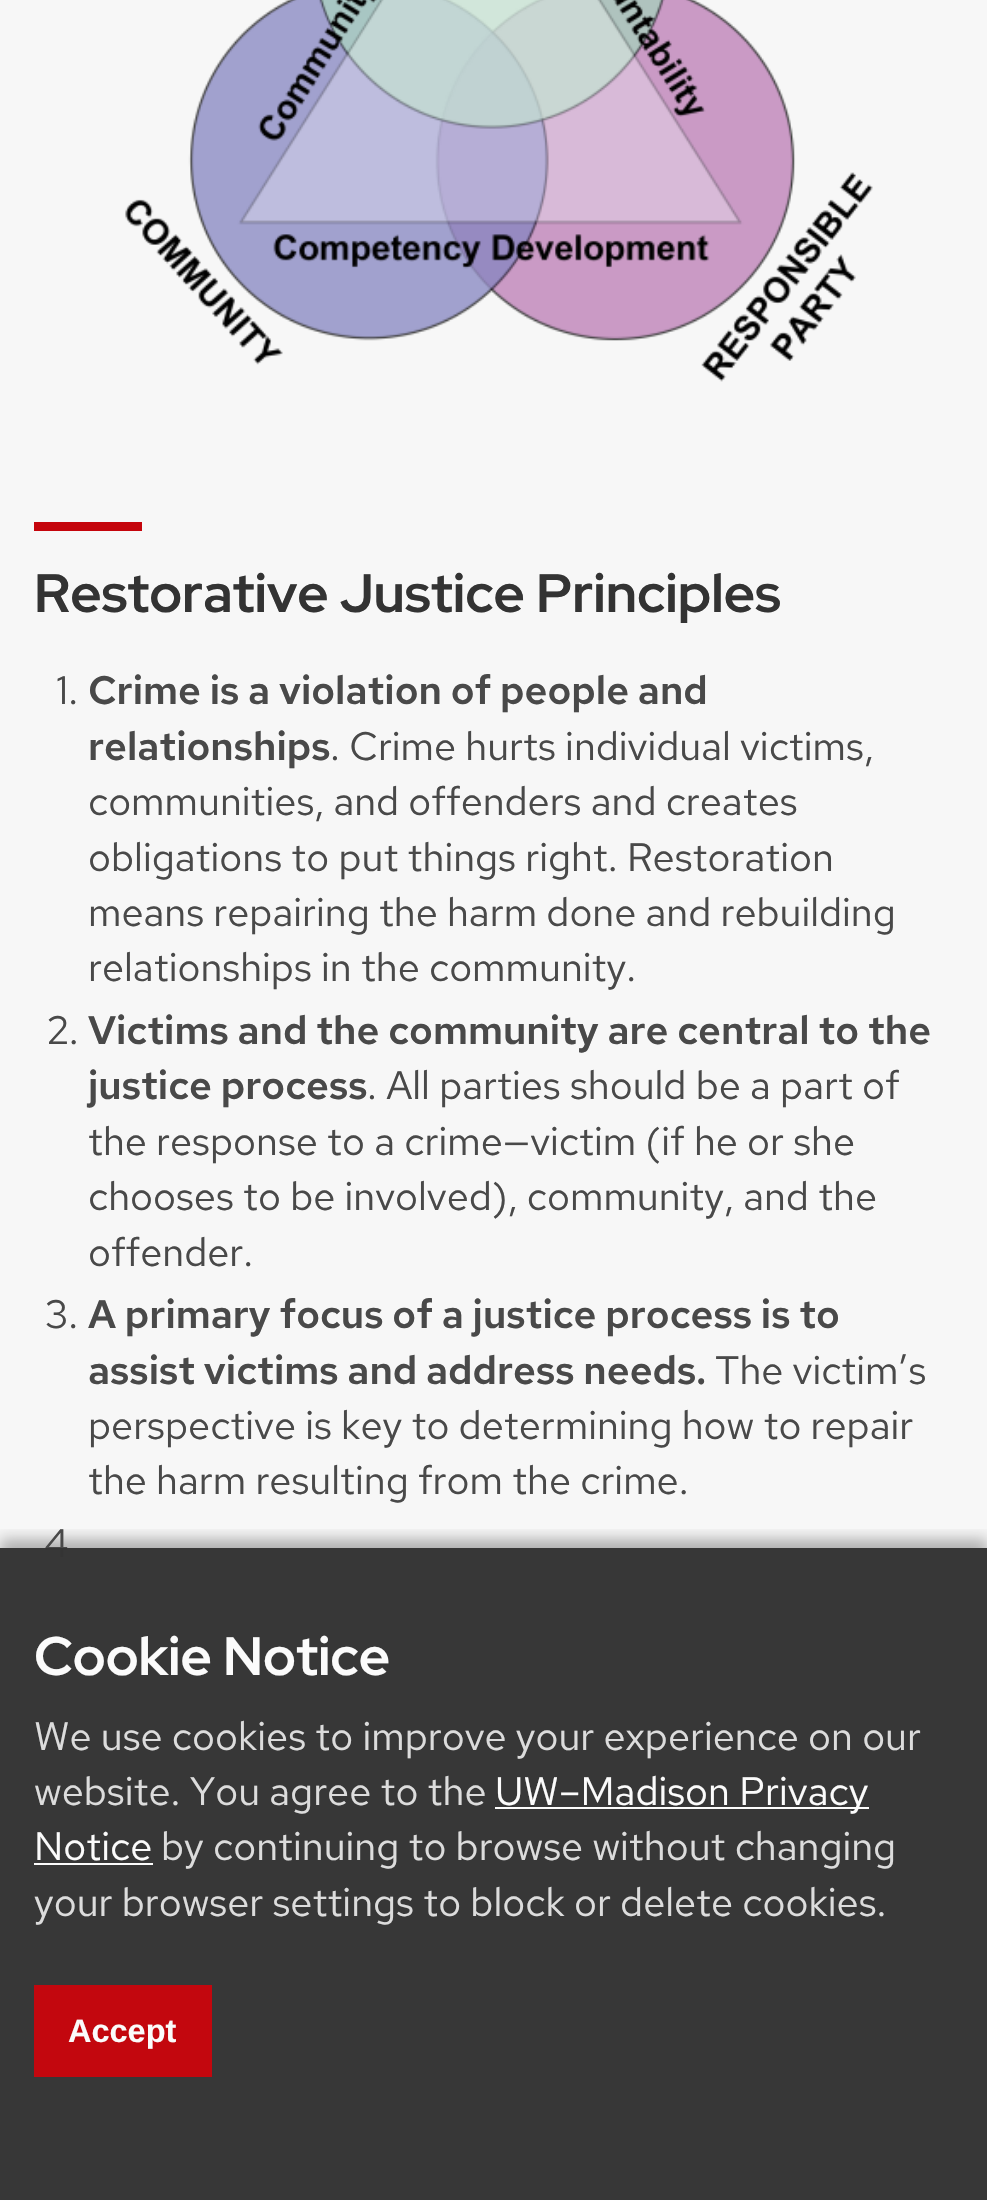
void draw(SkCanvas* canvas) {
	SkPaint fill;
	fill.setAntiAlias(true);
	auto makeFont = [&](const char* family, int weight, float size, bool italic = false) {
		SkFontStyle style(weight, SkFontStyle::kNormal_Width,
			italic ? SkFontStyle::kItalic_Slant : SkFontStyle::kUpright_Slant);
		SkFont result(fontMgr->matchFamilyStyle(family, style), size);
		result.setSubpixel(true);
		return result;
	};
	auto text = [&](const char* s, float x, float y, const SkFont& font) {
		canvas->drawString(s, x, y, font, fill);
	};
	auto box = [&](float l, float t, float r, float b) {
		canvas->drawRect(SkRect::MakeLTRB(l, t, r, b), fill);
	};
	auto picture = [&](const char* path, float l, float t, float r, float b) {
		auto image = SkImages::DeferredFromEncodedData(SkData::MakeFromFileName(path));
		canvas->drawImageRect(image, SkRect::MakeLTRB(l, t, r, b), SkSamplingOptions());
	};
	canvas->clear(0xFFF7F7F7);
	picture("image0.png", 125, 0, 873, 382);
	fill.setColor(0xFFC5050C);
	box(34, 522, 142, 531);
	canvas->save();
	canvas->clipRect(SkRect::MakeLTRB(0, 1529, 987, 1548));
	fill.setColor(0x4A000000);
	fill.setMaskFilter(SkMaskFilter::MakeBlur(kNormal_SkBlurStyle, 7));
	canvas->drawRect(SkRect::MakeLTRB(0, 1539, 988, 2192), fill);
	fill.setMaskFilter(nullptr);
	canvas->restore();
	auto font1 = makeFont("Red Hat Display", 600, 54);
	fill.setColor(0xFF333333);
	text("Restorative Justice Principles", 34, 612, font1);
	auto font2 = makeFont("Red Hat Text", 400, 39.6f);
	fill.setColor(0xFF494949);
	text("1.", 56, 704, font2);
	auto font3 = makeFont("Red Hat Text", 600, 39.6f);
	text("Crime is a violation of people and", 88, 704, font3);
	text("relationships", 88, 760, font3);
	text(". Crime hurts individual victims,", 330, 760, font2);
	text("communities, and offenders and creates", 88, 815, font2);
	text("obligations to put things right. Restoration", 88, 871, font2);
	text("means repairing the harm done and rebuilding", 88, 926, font2);
	text("relationships in the community.", 88, 981, font2);
	text("2.", 47, 1044, font2);
	text("Victims and the community are central to the", 88, 1044, font3);
	text("justice process", 88, 1099, font3);
	text(". All parties should be a part of", 367, 1099, font2);
	text("the response to a crime—victim (if he or she", 88, 1155, font2);
	text("chooses to be involved), community, and the", 88, 1210, font2);
	text("offender.", 88, 1266, font2);
	text("3.", 45, 1328, font2);
	text("A primary focus of a justice process is to", 88, 1328, font3);
	text("assist victims and address needs.", 88, 1384, font3);
	text("The victim’s", 715, 1384, font2);
	text("perspective is key to determining how to repair", 88, 1439, font2);
	text("the harm resulting from the crime.", 88, 1494, font2);
	text("4", 44, 1557, font2);
	fill.setColor(0xFA333333);
	box(0, 1548, 987, 2200);
	fill.setColor(0xFFFBFBFB);
	text("Cookie Notice", 34, 1675, font1);
	fill.setColor(0xFFDCDCDC);
	text("We use cookies to improve your experience on our", 34, 1750, font2);
	text("website. You agree to the", 34, 1805, font2);
	fill.setColor(0xFAFFFFFF);
	box(495, 1807, 869, 1809);
	fill.setColor(0xFFFBFBFB);
	text("UW–Madison Privacy", 495, 1805, font2);
	text("Notice", 34, 1860, font2);
	fill.setColor(0xFAFFFFFF);
	box(34, 1863, 153, 1865);
	fill.setColor(0xFFDCDCDC);
	text("by continuing to browse without changing", 161, 1860, font2);
	text("your browser settings to block or delete cookies.", 34, 1916, font2);
	fill.setColor(0xFAC5050C);
	box(34, 1985, 212, 2077);
	auto font4 = makeFont("Liberation Sans", 700, 32.5f);
	fill.setColor(0xFFFBFBFB);
	text("Accept", 68, 2042, font4);
}
